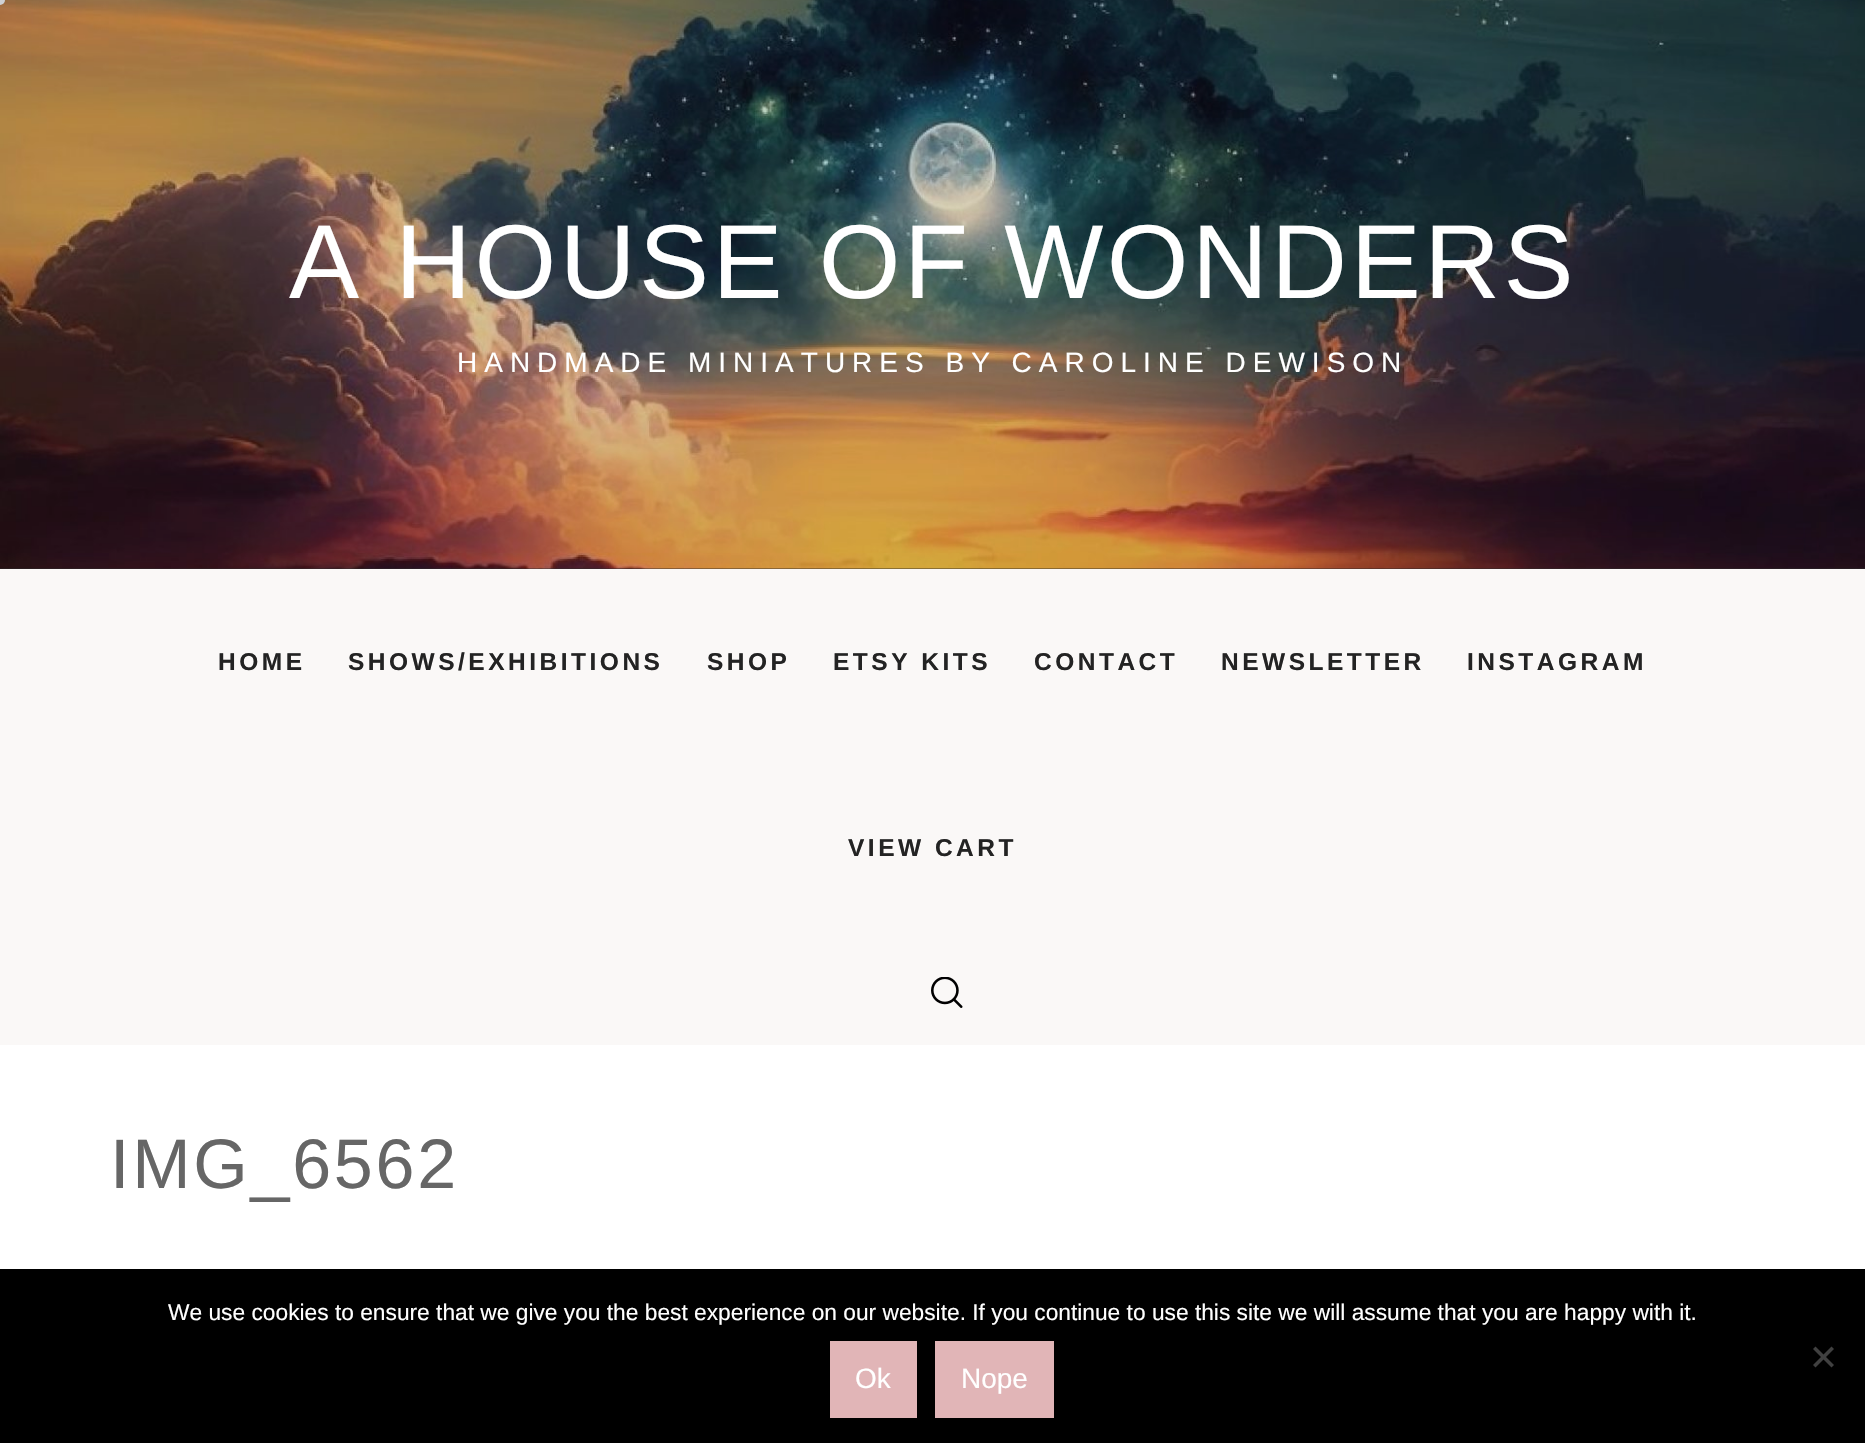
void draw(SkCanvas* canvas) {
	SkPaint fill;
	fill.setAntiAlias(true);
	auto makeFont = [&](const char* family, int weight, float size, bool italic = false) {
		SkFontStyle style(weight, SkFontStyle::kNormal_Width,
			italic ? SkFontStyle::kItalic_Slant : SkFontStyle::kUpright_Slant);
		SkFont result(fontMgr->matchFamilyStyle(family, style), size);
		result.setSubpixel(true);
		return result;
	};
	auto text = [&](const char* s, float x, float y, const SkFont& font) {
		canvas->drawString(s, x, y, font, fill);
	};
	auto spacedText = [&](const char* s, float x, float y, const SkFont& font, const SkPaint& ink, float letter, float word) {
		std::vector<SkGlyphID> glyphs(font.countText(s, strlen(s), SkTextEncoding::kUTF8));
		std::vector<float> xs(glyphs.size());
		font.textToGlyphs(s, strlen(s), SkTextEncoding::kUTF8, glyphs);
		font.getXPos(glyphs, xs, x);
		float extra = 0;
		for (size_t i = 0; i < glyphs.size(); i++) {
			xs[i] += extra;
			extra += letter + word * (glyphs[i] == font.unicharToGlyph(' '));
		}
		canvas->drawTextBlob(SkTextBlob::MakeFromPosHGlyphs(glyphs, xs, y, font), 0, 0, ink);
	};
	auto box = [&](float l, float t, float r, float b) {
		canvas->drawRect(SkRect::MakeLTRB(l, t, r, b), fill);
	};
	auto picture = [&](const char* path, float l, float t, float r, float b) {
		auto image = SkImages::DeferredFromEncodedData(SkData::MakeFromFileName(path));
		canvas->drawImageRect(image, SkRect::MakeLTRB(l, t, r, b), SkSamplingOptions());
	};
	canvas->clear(0xFFFFFFFF);
	fill.setColor(0xFF2D2D2D);
	box(0, 0, 1865, 569);
	picture("image0.png", 0, 0, 1865, 569);
	fill.setColor(0xFFCED0D4);
	canvas->drawCircle(0, 0, 5, fill);
	fill.setColor(0xFFFAF8F7);
	box(0, 569, 1865, 1045);
	picture("image1.png", 931, 977, 963, 1008);
	fill.setColor(0xFF000000);
	box(0, 1269, 1865, 1443);
	fill.setColor(0xFF404040);
	canvas->drawPath(SkPathBuilder().moveTo(1831.5f, 1346.5f).lineTo(1834, 1349).lineTo(1815.5f, 1367.5f).lineTo(1813, 1365).close().detach(), fill);
	canvas->drawPath(SkPathBuilder().moveTo(1813, 1349).lineTo(1815.5f, 1346.5f).lineTo(1834, 1365).lineTo(1831.5f, 1367.5f).close().detach(), fill);
	fill.setColor(0xFFE1B5B7);
	box(830, 1341, 917, 1418);
	box(935, 1341, 1054, 1418);
	auto font1 = makeFont("Liberation Sans", 400, 105);
	fill.setColor(0xFFFFFFFF);
	spacedText("A HOUSE OF WONDERS", 289, 298, font1, fill, 3.5f, 0);
	auto font2 = makeFont("Liberation Sans", 400, 28);
	spacedText("HANDMADE MINIATURES BY CAROLINE DEWISON", 457, 372, font2, fill, 7, 0);
	auto font3 = makeFont("Liberation Sans", 700, 24.5f);
	fill.setColor(0xFF232323);
	spacedText("HOME", 218, 670, font3, fill, 3.5f, 0);
	spacedText("SHOWS/EXHIBITIONS", 348, 670, font3, fill, 3.5f, 0);
	spacedText("SHOP", 707, 670, font3, fill, 3.5f, 0);
	spacedText("ETSY KITS", 833, 670, font3, fill, 3.5f, 0);
	spacedText("CONTACT", 1034, 670, font3, fill, 3.5f, 0);
	spacedText("NEWSLETTER", 1221, 670, font3, fill, 3.5f, 0);
	spacedText("INSTAGRAM", 1467, 670, font3, fill, 3.5f, 0);
	spacedText("VIEW CART", 848, 856, font3, fill, 3.5f, 0);
	auto font4 = makeFont("Liberation Sans", 400, 70);
	fill.setColor(0xFF666666);
	spacedText("IMG_6562", 110, 1188, font4, fill, 2.75f, 0);
	auto font5 = makeFont("Liberation Sans", 400, 22.75f);
	fill.setColor(0xFFFFFFFF);
	text("We use cookies to ensure that we give you the best experience on our website. If you continue to use this site we will assume that you are happy with it.", 168, 1320, font5);
	text("Ok", 855, 1388, font2);
	text("Nope", 961, 1388, font2);
}
